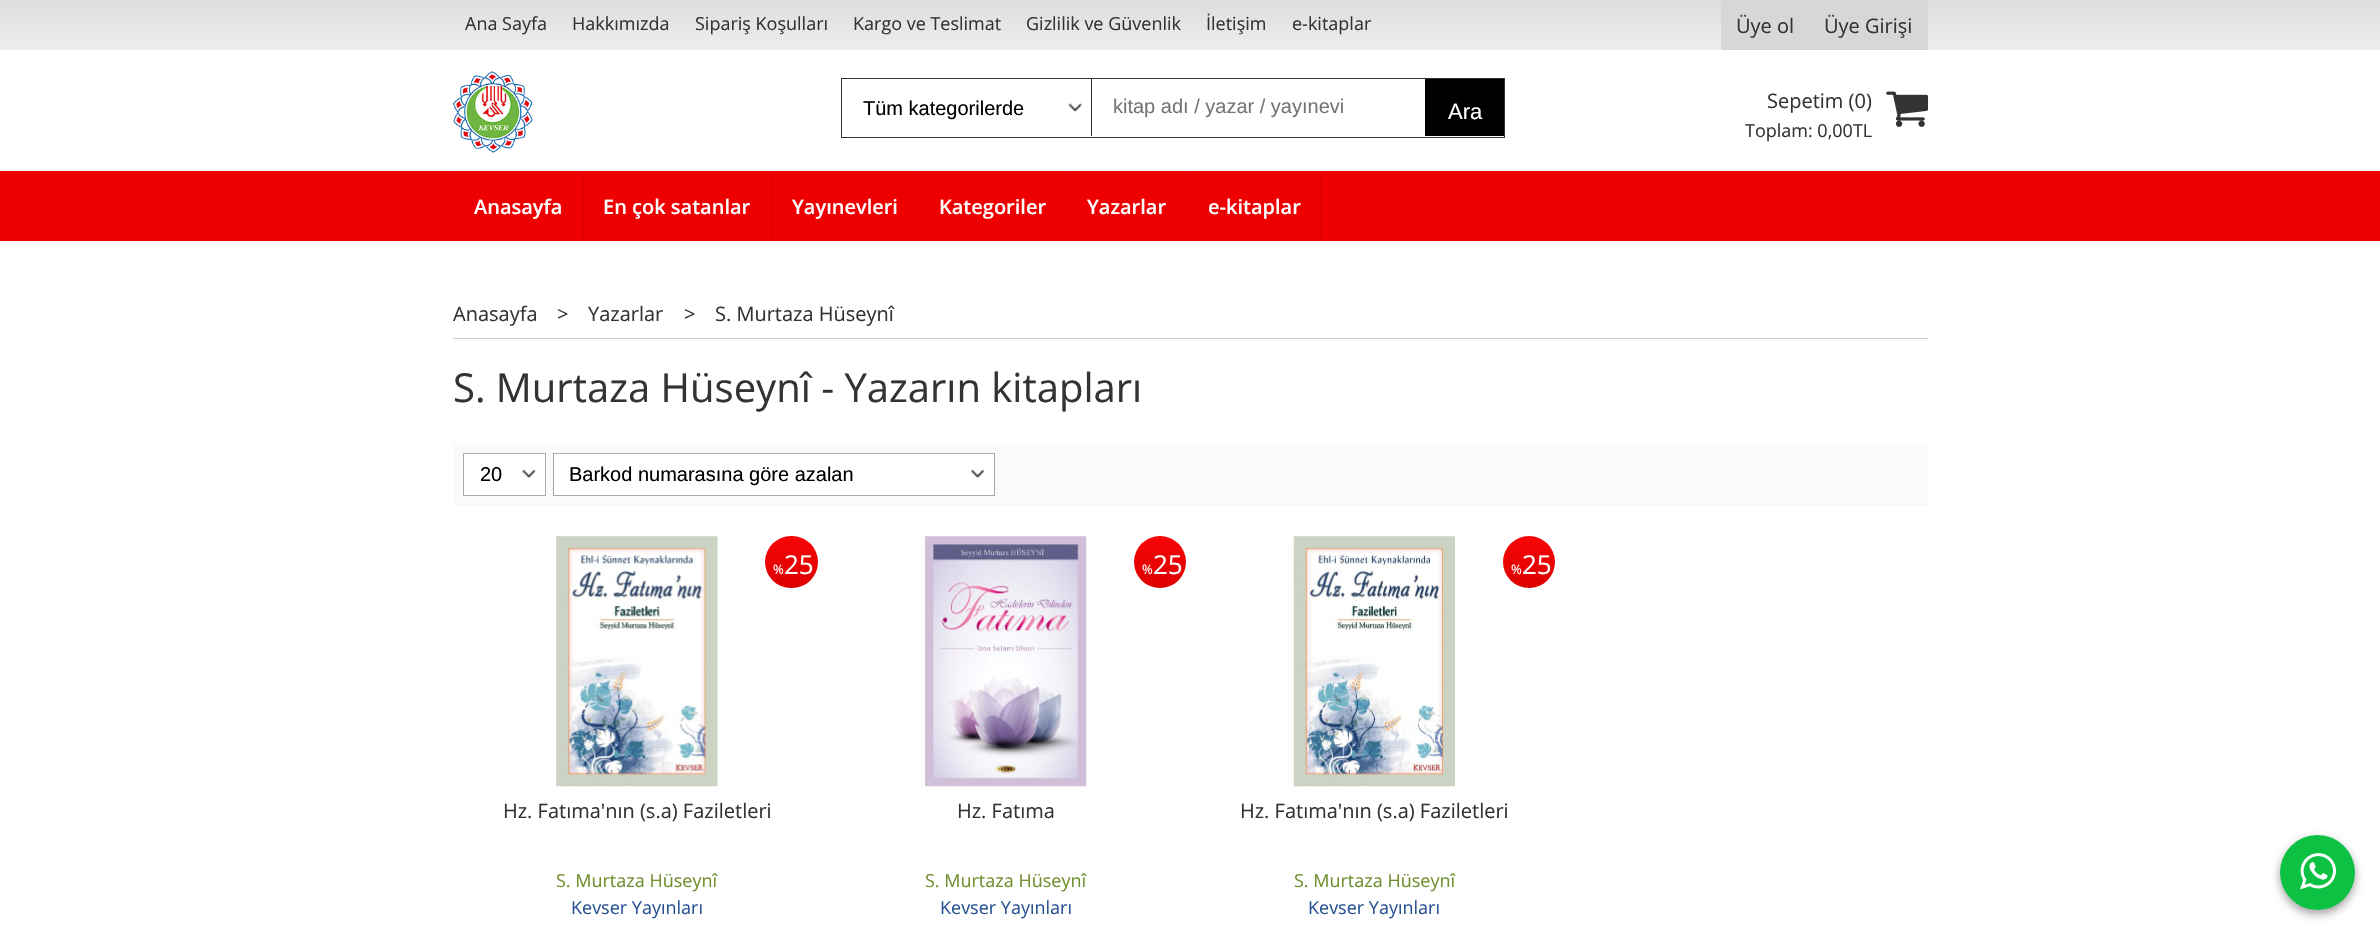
void draw(SkCanvas* canvas) {
	SkPaint fill;
	fill.setAntiAlias(true);
	auto makeFont = [&](const char* family, int weight, float size, bool italic = false) {
		SkFontStyle style(weight, SkFontStyle::kNormal_Width,
			italic ? SkFontStyle::kItalic_Slant : SkFontStyle::kUpright_Slant);
		SkFont result(fontMgr->matchFamilyStyle(family, style), size);
		result.setSubpixel(true);
		return result;
	};
	auto text = [&](const char* s, float x, float y, const SkFont& font) {
		canvas->drawString(s, x, y, font, fill);
	};
	auto box = [&](float l, float t, float r, float b) {
		canvas->drawRect(SkRect::MakeLTRB(l, t, r, b), fill);
	};
	auto roundBox = [&](float l, float t, float r, float b, float radius) {
		canvas->drawRoundRect(SkRect::MakeLTRB(l, t, r, b), radius, radius, fill);
	};
	auto picture = [&](const char* path, float l, float t, float r, float b) {
		auto image = SkImages::DeferredFromEncodedData(SkData::MakeFromFileName(path));
		canvas->drawImageRect(image, SkRect::MakeLTRB(l, t, r, b), SkSamplingOptions());
	};
	canvas->clear(0xFFFFFFFF);
	{
		const SkColor colors[] = {0xFFDDDDDD, 0xFFEEEEEE};
		const float stops[] = {0, 1};
		const SkPoint ends[] = {{1190, 0}, {1190, 50}};
		fill.setShader(SkGradientShader::MakeLinear(ends, colors, stops, 2, SkTileMode::kClamp));
		fill.setAlpha(255);
	}
	box(0, 0, 2380, 50);
	fill.setShader(nullptr);
	fill.setColor(0xFFD7D7D7);
	box(1721, 0, 1928, 50);
	picture("image0.png", 453, 71, 533, 153);
	fill.setStyle(SkPaint::kStroke_Style);
	fill.setStrokeWidth(1);
	fill.setColor(0xFF333333);
	canvas->drawRect(SkRect::MakeLTRB(841.5f, 78.5f, 1504.5f, 137.5f), fill);
	picture("image1.png", 1068, 103, 1082, 112);
	fill.setStyle(SkPaint::kFill_Style);
	box(1091, 79, 1092, 136);
	fill.setColor(0xFF000000);
	box(1425, 79, 1504, 136);
	picture("image2.png", 1886, 91, 1929, 127);
	fill.setColor(0xFFEE0000);
	box(0, 171, 2380, 241);
	fill.setColor(0xFFDD0000);
	box(453, 171, 454, 241);
	box(583, 171, 584, 241);
	box(771, 171, 772, 241);
	box(918, 171, 919, 241);
	box(1066, 171, 1067, 241);
	box(1320, 171, 1321, 241);
	box(1186, 171, 1187, 241);
	fill.setColor(0xFFCCCCCC);
	box(453, 338, 1928, 339);
	fill.setColor(0xFFFAFAFA);
	box(453, 443, 1928, 506);
	fill.setColor(0xFFFFFFFF);
	box(464, 454, 545, 495);
	picture("image3.png", 522, 470, 536, 478);
	fill.setStyle(SkPaint::kStroke_Style);
	fill.setColor(0xFFAAAAAA);
	canvas->drawRect(SkRect::MakeLTRB(463.5f, 453.5f, 545.5f, 495.5f), fill);
	fill.setStyle(SkPaint::kFill_Style);
	fill.setColor(0xFFFFFFFF);
	box(554, 454, 994, 495);
	picture("image4.png", 971, 470, 984, 478);
	fill.setStyle(SkPaint::kStroke_Style);
	fill.setColor(0xFFAAAAAA);
	canvas->drawRect(SkRect::MakeLTRB(553.5f, 453.5f, 994.5f, 495.5f), fill);
	picture("image5.png", 556, 536, 718, 787);
	fill.setStyle(SkPaint::kFill_Style);
	{
		const SkColor colors[] = {0xFFF70505, 0xFFDD0000};
		const float stops[] = {0, 1};
		const SkPoint ends[] = {{791, 536}, {791, 588}};
		fill.setShader(SkGradientShader::MakeLinear(ends, colors, stops, 2, SkTileMode::kClamp));
		fill.setAlpha(255);
	}
	roundBox(765, 536, 818, 588, 26);
	picture("image6.png", 925, 536, 1087, 787);
	{
		const SkColor colors[] = {0xFFF70505, 0xFFDD0000};
		const float stops[] = {0, 1};
		const SkPoint ends[] = {{1160, 536}, {1160, 588}};
		fill.setShader(SkGradientShader::MakeLinear(ends, colors, stops, 2, SkTileMode::kClamp));
		fill.setAlpha(255);
	}
	canvas->drawCircle(1160, 562, 26, fill);
	picture("image7.png", 1293, 536, 1455, 787);
	{
		const SkColor colors[] = {0xFFF70505, 0xFFDD0000};
		const float stops[] = {0, 1};
		const SkPoint ends[] = {{1529, 536}, {1529, 588}};
		fill.setShader(SkGradientShader::MakeLinear(ends, colors, stops, 2, SkTileMode::kClamp));
		fill.setAlpha(255);
	}
	canvas->drawCircle(1529, 562, 26, fill);
	fill.setShader(nullptr);
	fill.setColor(0x3B000000);
	fill.setMaskFilter(SkMaskFilter::MakeBlur(kNormal_SkBlurStyle, 4));
	canvas->drawRoundRect(SkRect::MakeLTRB(2280, 839, 2355, 914), 37.5f, 37.5f, fill);
	fill.setMaskFilter(nullptr);
	fill.setColor(0x29000000);
	fill.setMaskFilter(SkMaskFilter::MakeBlur(kNormal_SkBlurStyle, 4));
	canvas->drawRoundRect(SkRect::MakeLTRB(2280, 839, 2355, 914), 37.5f, 37.5f, fill);
	fill.setMaskFilter(nullptr);
	fill.setColor(0xFF0DC143);
	canvas->drawCircle(2317.5f, 872.5f, 37.5f, fill);
	picture("image8.png", 2300, 853, 2336, 890);
	auto font1 = makeFont("Open Sans", 400, 18);
	fill.setColor(0xFF333333);
	text("Ana Sayfa", 465, 30, font1);
	text("Hakkımızda", 572, 30, font1);
	text("Sipariş Koşulları", 695, 30, font1);
	text("Kargo ve Teslimat", 853, 30, font1);
	text("Gizlilik ve Güvenlik", 1026, 30, font1);
	text("İletişim", 1206, 30, font1);
	text("e-kitaplar", 1292, 30, font1);
	auto font2 = makeFont("Open Sans", 400, 20);
	text("Üye ol", 1736, 33, font2);
	text("Üye Girişi", 1824, 33, font2);
	auto font3 = makeFont("Liberation Sans", 400, 20);
	fill.setColor(0xFF000000);
	text("Tüm kategorilerde", 863, 115, font3);
	fill.setColor(0xFF757575);
	text("kitap adı / yazar / yayınevi", 1113, 113, font3);
	auto font4 = makeFont("Liberation Sans", 400, 22);
	fill.setColor(0xFFFFFFFF);
	text("Ara", 1448, 119, font4);
	fill.setColor(0xFF333333);
	text("Sepetim (0)", 1767, 108, font2);
	text("Toplam: 0,00TL", 1745, 137, font1);
	auto font5 = makeFont("Open Sans", 600, 20);
	fill.setColor(0xFFFFFFFF);
	text("Anasayfa", 474, 214, font5);
	text("En çok satanlar", 603, 214, font5);
	text("Yayınevleri", 792, 214, font5);
	text("Kategoriler", 939, 214, font5);
	text("Yazarlar", 1087, 214, font5);
	text("e-kitaplar", 1208, 214, font5);
	fill.setColor(0xFF333333);
	text("Anasayfa", 453, 321, font2);
	text(">", 557, 321, font2);
	text("Yazarlar", 588, 321, font2);
	text(">", 684, 321, font2);
	text("S. Murtaza Hüseynî", 715, 321, font2);
	auto font6 = makeFont("Open Sans", 400, 40);
	text("S. Murtaza Hüseynî - Yazarın kitapları", 453, 402, font6);
	fill.setColor(0xFF000000);
	text("20", 480, 481, font3);
	text("Barkod numarasına göre azalan", 569, 481, font3);
	auto font7 = makeFont("Open Sans", 400, 13);
	fill.setColor(0xFFFFFFFF);
	text("%", 773, 574, font7);
	auto font8 = makeFont("Open Sans", 400, 26);
	text("25", 784, 574, font8);
	fill.setColor(0xFF333333);
	text("Hz. Fatıma'nın (s.a) Faziletleri", 503, 818, font2);
	fill.setColor(0xFF718F2F);
	text("S. Murtaza Hüseynî", 556, 887, font1);
	fill.setColor(0xFF285294);
	text("Kevser Yayınları", 571, 914, font1);
	fill.setColor(0xFFFFFFFF);
	text("%", 1142, 574, font7);
	text("25", 1153, 574, font8);
	fill.setColor(0xFF333333);
	text("Hz. Fatıma", 957, 818, font2);
	fill.setColor(0xFF718F2F);
	text("S. Murtaza Hüseynî", 925, 887, font1);
	fill.setColor(0xFF285294);
	text("Kevser Yayınları", 940, 914, font1);
	fill.setColor(0xFFFFFFFF);
	text("%", 1511, 574, font7);
	text("25", 1522, 574, font8);
	fill.setColor(0xFF333333);
	text("Hz. Fatıma'nın (s.a) Faziletleri", 1240, 818, font2);
	fill.setColor(0xFF718F2F);
	text("S. Murtaza Hüseynî", 1294, 887, font1);
	fill.setColor(0xFF285294);
	text("Kevser Yayınları", 1308, 914, font1);
}
